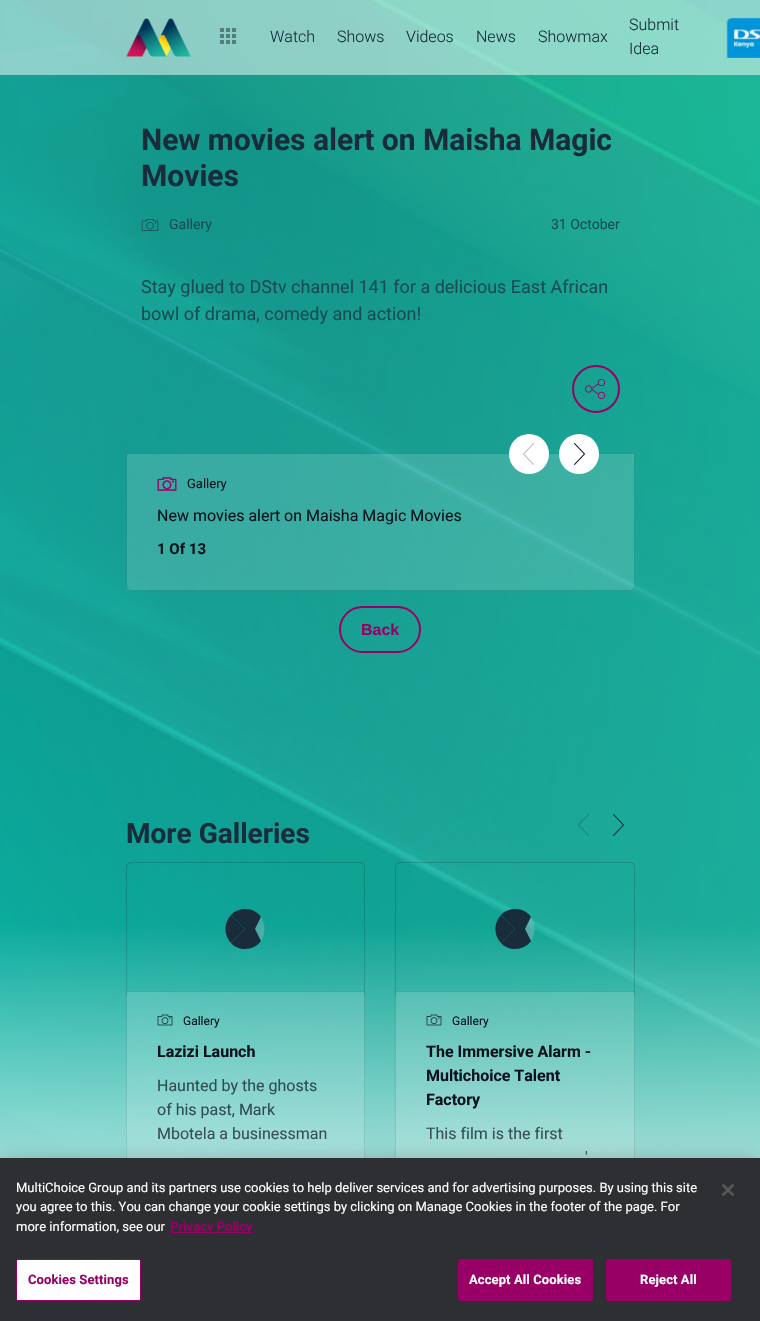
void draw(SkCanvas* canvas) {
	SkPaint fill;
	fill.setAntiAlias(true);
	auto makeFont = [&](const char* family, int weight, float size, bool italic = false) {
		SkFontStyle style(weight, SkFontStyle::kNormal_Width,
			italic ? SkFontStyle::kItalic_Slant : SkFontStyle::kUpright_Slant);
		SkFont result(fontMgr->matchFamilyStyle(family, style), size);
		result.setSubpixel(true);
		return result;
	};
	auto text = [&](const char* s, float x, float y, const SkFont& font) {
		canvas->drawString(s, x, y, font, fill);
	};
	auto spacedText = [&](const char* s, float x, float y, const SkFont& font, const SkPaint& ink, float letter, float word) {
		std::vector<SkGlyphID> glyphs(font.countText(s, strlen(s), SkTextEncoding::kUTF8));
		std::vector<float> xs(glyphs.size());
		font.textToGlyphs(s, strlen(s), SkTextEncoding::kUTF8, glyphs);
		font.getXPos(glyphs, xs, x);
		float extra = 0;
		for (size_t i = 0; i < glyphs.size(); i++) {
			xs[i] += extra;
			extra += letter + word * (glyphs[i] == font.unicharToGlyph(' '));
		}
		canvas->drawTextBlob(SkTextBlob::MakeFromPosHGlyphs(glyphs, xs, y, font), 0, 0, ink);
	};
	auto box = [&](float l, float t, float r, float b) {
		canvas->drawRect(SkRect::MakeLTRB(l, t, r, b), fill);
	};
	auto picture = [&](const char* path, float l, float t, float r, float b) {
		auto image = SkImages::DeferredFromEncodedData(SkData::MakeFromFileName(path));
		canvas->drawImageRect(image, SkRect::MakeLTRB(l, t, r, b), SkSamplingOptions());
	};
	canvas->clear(0xFFFFFFFF);
	picture("image0.png", 0, 0, 760, 1158);
	fill.setColor(0x80FFFFFF);
	box(0, 0, 760, 75);
	picture("image1.png", 126, 18, 191, 57);
	picture("image2.png", 220, 28, 236, 44);
	picture("image3.png", 726, 17, 760, 58);
	picture("image4.png", 141, 219, 159, 231);
	fill.setStyle(SkPaint::kStroke_Style);
	fill.setStrokeWidth(2);
	fill.setColor(0xFF990066);
	canvas->drawCircle(596, 389, 23, fill);
	picture("image5.png", 585, 378, 606, 400);
	fill.setStyle(SkPaint::kFill_Style);
	fill.setColor(0x0DFFFFFF);
	box(126, 453, 635, 591);
	fill.setStyle(SkPaint::kStroke_Style);
	fill.setStrokeWidth(1);
	fill.setColor(0x14000000);
	canvas->drawPath(SkPathBuilder().moveTo(126.5f, 453.5f).lineTo(634.5f, 453.5f).lineTo(634.5f, 586).cubicTo(634.5f, 588.5f, 632.5f, 590.5f, 630, 590.5f).lineTo(131, 590.5f).cubicTo(128.5f, 590.5f, 126.5f, 588.5f, 126.5f, 586).close().detach(), fill);
	fill.setStyle(SkPaint::kFill_Style);
	fill.setColor(0x1AFFFFFF);
	canvas->drawPath(SkPathBuilder().moveTo(127, 454).lineTo(634, 454).lineTo(634, 585).cubicTo(634, 588, 632, 590, 629, 590).lineTo(132, 590).cubicTo(129, 590, 127, 588, 127, 585).close().detach(), fill);
	fill.setColor(0xFFFFFFFF);
	canvas->drawCircle(529, 454, 20, fill);
	picture("image6.png", 523, 443, 534, 465);
	canvas->drawCircle(579, 454, 20, fill);
	picture("image7.png", 574, 443, 585, 465);
	picture("image8.png", 157, 477, 177, 491);
	fill.setStyle(SkPaint::kStroke_Style);
	fill.setStrokeWidth(2);
	fill.setColor(0xFF990066);
	canvas->drawRoundRect(SkRect::MakeLTRB(340, 607, 420, 652), 22.5f, 22.5f, fill);
	picture("image9.png", 578, 814, 589, 836);
	picture("image10.png", 613, 814, 624, 836);
	fill.setStyle(SkPaint::kFill_Style);
	fill.setColor(0x26000000);
	canvas->drawPath(SkPathBuilder().moveTo(131, 862).cubicTo(128, 862, 126, 864, 126, 867).lineTo(126, 996).lineTo(127, 996).lineTo(127, 867).cubicTo(127, 865, 129, 863, 131, 863).lineTo(360, 863).cubicTo(362, 863, 364, 865, 364, 867).lineTo(364, 996).lineTo(365, 996).lineTo(365, 867).cubicTo(365, 864, 363, 862, 360, 862).close().detach(), fill);
	fill.setColor(0xFF182C3B);
	canvas->drawPath(SkPathBuilder().moveTo(245, 909).cubicTo(252.5f, 909, 258, 912.5f, 261, 917).lineTo(255, 929).lineTo(245, 929).lineTo(231, 915).cubicTo(234, 911.5f, 239, 909, 245, 909).close().detach(), fill);
	fill.setColor(0x66A2B6BF);
	canvas->drawPath(SkPathBuilder().moveTo(261, 917).cubicTo(265.5f, 924, 265.5f, 934, 261, 941).lineTo(255, 929).close().detach(), fill);
	fill.setColor(0xFF182C3B);
	canvas->drawPath(SkPathBuilder().moveTo(261, 941).cubicTo(254.5f, 950.5f, 239, 952, 231, 943).lineTo(245, 929).lineTo(255, 929).close().detach(), fill);
	canvas->drawPath(SkPathBuilder().moveTo(231, 915).lineTo(245, 929).lineTo(231, 943).cubicTo(223.5f, 935.5f, 223.5f, 922.5f, 231, 915).close().detach(), fill);
	fill.setColor(0x0DFFFFFF);
	box(126, 991, 365, 1158);
	fill.setStyle(SkPaint::kStroke_Style);
	fill.setStrokeWidth(1);
	fill.setColor(0x14000000);
	canvas->drawRect(SkRect::MakeLTRB(126.5f, 991.5f, 364.5f, 1224.5f), fill);
	fill.setStyle(SkPaint::kFill_Style);
	fill.setColor(0x1AFFFFFF);
	box(127, 992, 364, 1158);
	picture("image11.png", 157, 1014, 173, 1026);
	canvas->save();
	canvas->clipRect(SkRect::MakeLTRB(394, 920, 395, 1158));
	fill.setColor(0x99000000);
	fill.setMaskFilter(SkMaskFilter::MakeBlur(kNormal_SkBlurStyle, 8.5f));
	canvas->drawRect(SkRect::MakeLTRB(410, 902, 610, 1225), fill);
	fill.setMaskFilter(nullptr);
	canvas->restore();
	fill.setColor(0x26000000);
	canvas->drawPath(SkPathBuilder().moveTo(400, 862).cubicTo(397, 862, 395, 864, 395, 867).lineTo(395, 996).lineTo(396, 996).lineTo(396, 867).cubicTo(396, 865, 398, 863, 400, 863).lineTo(630, 863).cubicTo(632, 863, 634, 865, 634, 867).lineTo(634, 996).lineTo(635, 996).lineTo(635, 867).cubicTo(635, 864, 633, 862, 630, 862).close().detach(), fill);
	fill.setColor(0xFF182C3B);
	canvas->drawPath(SkPathBuilder().moveTo(515, 909).cubicTo(522.5f, 909, 528, 912.5f, 531, 917).lineTo(525, 929).lineTo(515, 929).lineTo(501, 915).cubicTo(504, 911.5f, 509, 909, 515, 909).close().detach(), fill);
	fill.setColor(0x66A2B6BF);
	canvas->drawPath(SkPathBuilder().moveTo(531, 917).cubicTo(535.5f, 924, 535.5f, 934, 531, 941).lineTo(525, 929).close().detach(), fill);
	fill.setColor(0xFF182C3B);
	canvas->drawPath(SkPathBuilder().moveTo(531, 941).cubicTo(524.5f, 950.5f, 509, 952, 501, 943).lineTo(515, 929).lineTo(525, 929).close().detach(), fill);
	canvas->drawPath(SkPathBuilder().moveTo(501, 915).lineTo(515, 929).lineTo(501, 943).cubicTo(493.5f, 935.5f, 493.5f, 922.5f, 501, 915).close().detach(), fill);
	fill.setColor(0x0DFFFFFF);
	box(395, 991, 635, 1158);
	fill.setStyle(SkPaint::kStroke_Style);
	fill.setColor(0x14000000);
	canvas->drawRect(SkRect::MakeLTRB(395.5f, 991.5f, 634.5f, 1224.5f), fill);
	fill.setStyle(SkPaint::kFill_Style);
	fill.setColor(0x1AFFFFFF);
	box(396, 992, 634, 1158);
	picture("image12.png", 426, 1014, 442, 1026);
	fill.setColor(0x33000000);
	fill.setMaskFilter(SkMaskFilter::MakeBlur(kNormal_SkBlurStyle, 9));
	canvas->drawRect(SkRect::MakeLTRB(0, 1158, 760, 1321), fill);
	fill.setMaskFilter(nullptr);
	fill.setColor(0xFF2E2F33);
	box(0, 1158, 760, 1321);
	fill.setColor(0xFF990066);
	box(170, 1232, 253, 1233);
	fill.setColor(0xFFFFFFFF);
	canvas->drawRoundRect(SkRect::MakeLTRB(16.5f, 1259.5f, 140.5f, 1300.5f), 1.5f, 1.5f, fill);
	fill.setStyle(SkPaint::kStroke_Style);
	fill.setColor(0xFF990066);
	canvas->drawRoundRect(SkRect::MakeLTRB(16.5f, 1259.5f, 140.5f, 1300.5f), 1.5f, 1.5f, fill);
	fill.setStyle(SkPaint::kFill_Style);
	canvas->drawRoundRect(SkRect::MakeLTRB(458.5f, 1259.5f, 592.5f, 1300.5f), 1.5f, 1.5f, fill);
	fill.setStyle(SkPaint::kStroke_Style);
	canvas->drawRoundRect(SkRect::MakeLTRB(458.5f, 1259.5f, 592.5f, 1300.5f), 1.5f, 1.5f, fill);
	fill.setStyle(SkPaint::kFill_Style);
	canvas->drawRoundRect(SkRect::MakeLTRB(606.5f, 1259.5f, 730.5f, 1300.5f), 1.5f, 1.5f, fill);
	fill.setStyle(SkPaint::kStroke_Style);
	canvas->drawRoundRect(SkRect::MakeLTRB(606.5f, 1259.5f, 730.5f, 1300.5f), 1.5f, 1.5f, fill);
	picture("image13.png", 722, 1184, 734, 1196);
	auto font1 = makeFont("Roboto", 300, 16);
	fill.setStyle(SkPaint::kFill_Style);
	fill.setColor(0xFF182C3B);
	text("Watch", 270, 42, font1);
	text("Shows", 337, 42, font1);
	text("Videos", 406, 42, font1);
	text("News", 476, 42, font1);
	text("Showmax", 538, 42, font1);
	text("Submit", 629, 30, font1);
	text("Idea", 629, 54, font1);
	auto font2 = makeFont("Roboto", 700, 30);
	text("New movies alert on Maisha Magic", 141, 150, font2);
	text("Movies", 141, 186, font2);
	auto font3 = makeFont("Roboto", 400, 14);
	fill.setColor(0xFF174C53);
	text("Gallery", 169, 229, font3);
	text("31 October", 551, 229, font3);
	auto font4 = makeFont("Roboto", 400, 18);
	text("Stay glued to DStv channel 141 for a delicious East African", 141, 293, font4);
	text("bowl of drama, comedy and action!", 141, 320, font4);
	auto font5 = makeFont("Roboto", 400, 13);
	fill.setColor(0xFF0A121D);
	text("Gallery", 187, 488, font5);
	auto font6 = makeFont("Roboto", 400, 16);
	text("New movies alert on Maisha Magic Movies", 157, 521, font6);
	auto font7 = makeFont("Roboto", 700, 15);
	text("1 Of 13", 157, 554, font7);
	auto font8 = makeFont("Liberation Sans", 700, 16);
	fill.setColor(0xFF990066);
	text("Back", 361, 635, font8);
	auto font9 = makeFont("Roboto", 700, 28);
	fill.setColor(0xFF182C3B);
	text("More Galleries", 126, 843, font9);
	auto font10 = makeFont("Roboto", 400, 12);
	fill.setColor(0xFF0A121D);
	text("Gallery", 183, 1025, font10);
	auto font11 = makeFont("Roboto", 700, 16);
	text("Lazizi Launch", 157, 1057, font11);
	fill.setColor(0xFF2F4C52);
	text("Haunted by the ghosts", 157, 1091, font6);
	text("of his past, Mark", 157, 1115, font6);
	fill.setColor(0xFF374F55);
	text("Mbotela a businessman", 157, 1139, font6);
	fill.setColor(0xFF0A121D);
	text("Gallery", 452, 1025, font10);
	text("The Immersive Alarm -", 426, 1057, font11);
	text("Multichoice Talent", 426, 1081, font11);
	text("Factory", 426, 1105, font11);
	fill.setColor(0xFF374F55);
	text("This film is the first", 426, 1139, font6);
	text("'", 585, 1163, font6);
	fill.setColor(0xFFFFFFFF);
	text("MultiChoice Group and its partners use cookies to help deliver services and for advertising purposes. By using this site", 16, 1192, font5);
	text("you agree to this. You can change your cookie settings by clicking on Manage Cookies in the footer of the page. For", 16, 1211, font5);
	text("more information, see our", 16, 1231, font5);
	auto font12 = makeFont("Roboto", 700, 13);
	fill.setColor(0xFF990066);
	text("Privacy Policy", 170, 1231, font12);
	spacedText("Cookies Settings", 28, 1284, font12, fill, 0.1f, 0);
	fill.setColor(0xFFFFFFFF);
	spacedText("Accept All Cookies", 469, 1284, font12, fill, 0.1f, 0);
	spacedText("Reject All", 640, 1284, font12, fill, 0.1f, 0);
}
